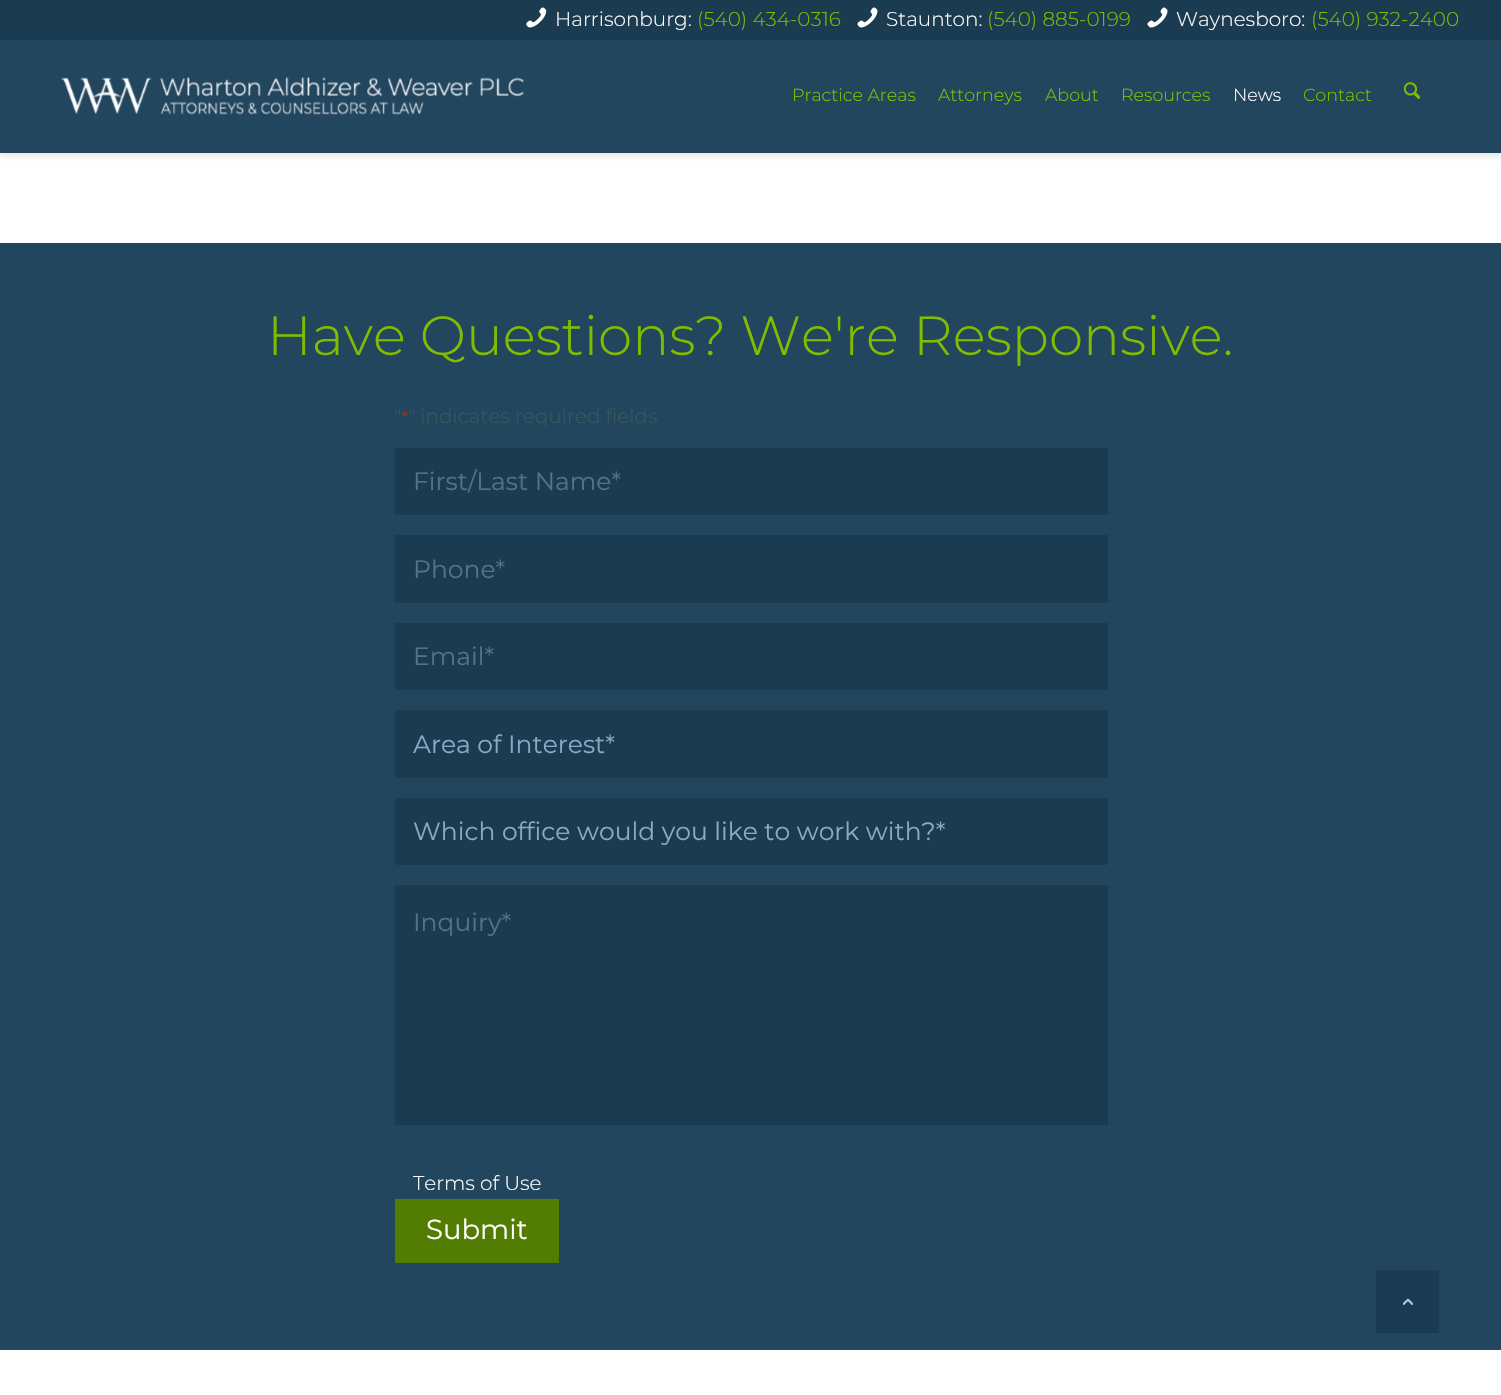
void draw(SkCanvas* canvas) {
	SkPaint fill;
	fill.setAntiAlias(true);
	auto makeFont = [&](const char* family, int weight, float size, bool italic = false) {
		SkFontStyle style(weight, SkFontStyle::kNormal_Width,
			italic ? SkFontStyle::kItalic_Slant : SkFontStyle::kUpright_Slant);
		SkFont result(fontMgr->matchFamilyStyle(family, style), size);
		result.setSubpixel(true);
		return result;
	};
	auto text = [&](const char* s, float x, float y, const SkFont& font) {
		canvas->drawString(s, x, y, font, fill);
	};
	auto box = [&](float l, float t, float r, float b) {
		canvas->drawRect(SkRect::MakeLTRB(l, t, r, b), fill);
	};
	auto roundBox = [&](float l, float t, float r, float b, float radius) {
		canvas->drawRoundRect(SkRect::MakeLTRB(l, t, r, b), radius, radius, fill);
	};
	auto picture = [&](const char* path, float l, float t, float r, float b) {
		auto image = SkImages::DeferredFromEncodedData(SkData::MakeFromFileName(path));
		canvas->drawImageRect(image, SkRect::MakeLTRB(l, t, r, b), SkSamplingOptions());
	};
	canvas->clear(0xFFFFFFFF);
	fill.setColor(0x1A000000);
	fill.setMaskFilter(SkMaskFilter::MakeBlur(kNormal_SkBlurStyle, 3));
	canvas->drawRect(SkRect::MakeLTRB(0, 4, 1501, 156), fill);
	fill.setMaskFilter(nullptr);
	fill.setColor(0xFF23465F);
	box(0, 40, 1501, 153);
	fill.setColor(0xFF1B3B51);
	box(0, 0, 1501, 40);
	picture("image0.png", 526, 7, 547, 28);
	picture("image1.png", 857, 7, 878, 28);
	picture("image1.png", 1147, 7, 1168, 28);
	picture("image2.png", 61, 77, 524, 115);
	picture("image3.png", 1404, 82, 1420, 99);
	fill.setColor(0xFF23465F);
	box(0, 243, 1501, 1350);
	fill.setColor(0xFF1B3B51);
	box(395, 448, 1108, 515);
	box(395, 535, 1108, 603);
	box(395, 623, 1108, 690);
	roundBox(395, 710, 1108, 778, 2.5f);
	roundBox(395, 798, 1108, 865, 2.5f);
	box(395, 885, 1108, 1125);
	fill.setColor(0xFF527D02);
	box(395, 1199, 559, 1263);
	fill.setColor(0xFF1B3A54);
	box(1376, 1270, 1439, 1333);
	picture("image4.png", 1403, 1298, 1413, 1305);
	auto font1 = makeFont("Montserrat", 300, 20);
	fill.setColor(0xFFFFFFFF);
	text("Harrisonburg:", 555, 26, font1);
	fill.setColor(0xFF81BC00);
	text("(540) 434-0316", 697, 26, font1);
	fill.setColor(0xFFFFFFFF);
	text("Staunton:", 886, 26, font1);
	fill.setColor(0xFF81BC00);
	text("(540) 885-0199", 987, 26, font1);
	fill.setColor(0xFFFFFFFF);
	text("Waynesboro:", 1176, 26, font1);
	fill.setColor(0xFF81BC00);
	text("(540) 932-2400", 1311, 26, font1);
	auto font2 = makeFont("Montserrat", 300, 17.5f);
	fill.setColor(0xFF84C200);
	text("Practice Areas", 792, 101, font2);
	text("Attorneys", 938, 101, font2);
	text("About", 1045, 101, font2);
	text("Resources", 1121, 101, font2);
	fill.setColor(0xFFFFFFFF);
	text("News", 1233, 101, font2);
	fill.setColor(0xFF84C200);
	text("Contact", 1303, 101, font2);
	auto font3 = makeFont("Montserrat", 300, 55);
	fill.setColor(0xFF81BC00);
	text("Have Questions? We're Responsive.", 267, 355, font3);
	fill.setColor(0xFF3C575A);
	text("\"", 394, 423, font1);
	auto font4 = makeFont("Montserrat", 300, 16);
	fill.setColor(0xFFC02B0A);
	text("*", 402, 423, font4);
	fill.setColor(0xFF3C575A);
	text("\" indicates required fields", 408, 423, font1);
	auto font5 = makeFont("Montserrat", 400, 25);
	fill.setColor(0xFF52738C);
	text("First/Last Name*", 413, 490, font5);
	text("Phone*", 413, 578, font5);
	text("Email*", 413, 665, font5);
	fill.setColor(0xFF89AAC7);
	text("Area of Interest*", 413, 753, font5);
	text("Which office would you like to work with?*", 413, 840, font5);
	fill.setColor(0xFF52738C);
	text("Inquiry*", 413, 931, font5);
	fill.setColor(0xFFFFFFFF);
	text("Terms of Use", 413, 1190, font1);
	auto font6 = makeFont("Montserrat", 400, 27.5f);
	text("Submit", 426, 1239, font6);
}
